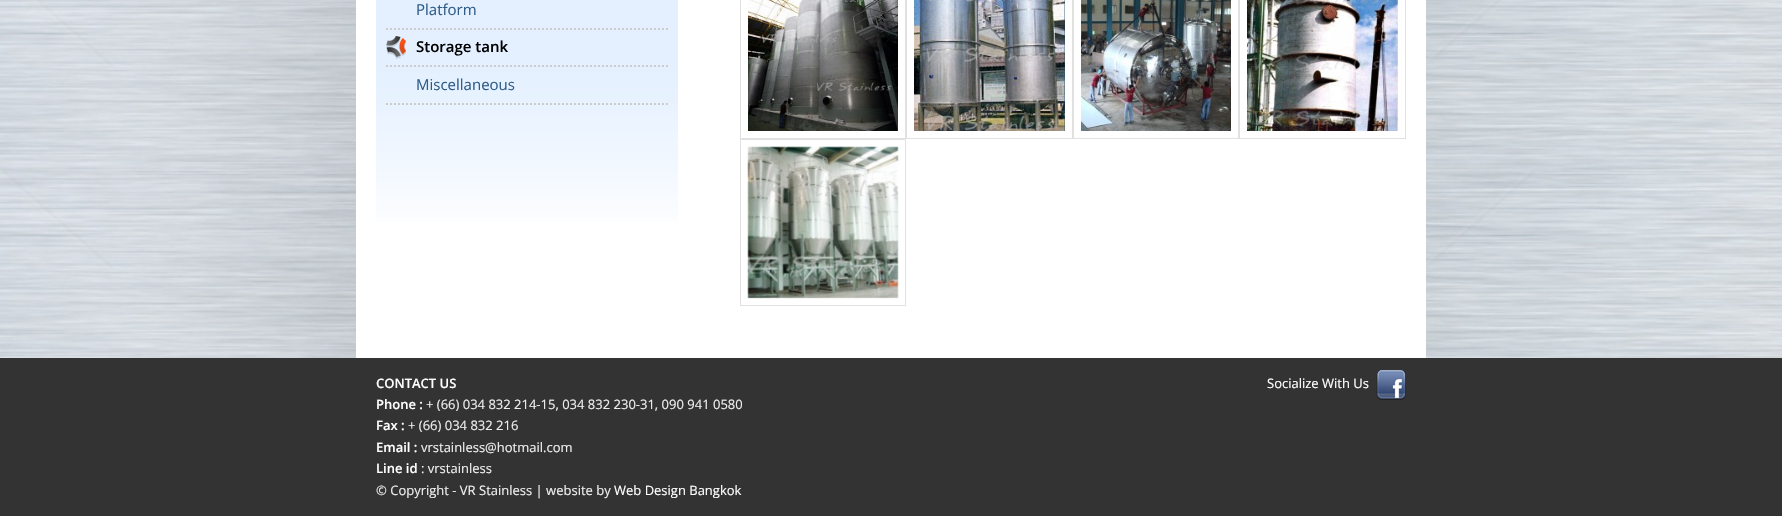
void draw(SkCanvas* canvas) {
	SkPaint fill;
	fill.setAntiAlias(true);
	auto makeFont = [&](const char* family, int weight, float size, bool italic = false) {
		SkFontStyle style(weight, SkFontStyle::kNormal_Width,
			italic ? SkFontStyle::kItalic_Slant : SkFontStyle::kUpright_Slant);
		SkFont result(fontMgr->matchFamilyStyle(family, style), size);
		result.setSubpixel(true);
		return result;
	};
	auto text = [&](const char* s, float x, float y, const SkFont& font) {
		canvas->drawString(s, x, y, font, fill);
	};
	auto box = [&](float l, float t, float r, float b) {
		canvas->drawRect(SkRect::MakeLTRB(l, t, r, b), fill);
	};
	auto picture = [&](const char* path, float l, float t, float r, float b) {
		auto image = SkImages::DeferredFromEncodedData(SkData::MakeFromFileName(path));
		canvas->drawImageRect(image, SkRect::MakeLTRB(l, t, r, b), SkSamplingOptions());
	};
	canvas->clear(0xFFFFFFFF);
	picture("image0.png", 0, 0, 1782, 358);
	fill.setColor(0xFFFFFFFF);
	box(356, 0, 1426, 358);
	picture("image1.png", 376, 0, 678, 222);
	fill.setStyle(SkPaint::kStroke_Style);
	fill.setStrokeWidth(2);
	fill.setColor(0xFFCCCCCC);
	fill.setPathEffect(SkDashPathEffect::Make({{2, 2}}, 0));
	canvas->drawPath(SkPathBuilder().moveTo(386, 29).lineTo(668, 29).detach(), fill);
	fill.setPathEffect(nullptr);
	picture("image2.png", 386, 36, 406, 59);
	fill.setPathEffect(SkDashPathEffect::Make({{2, 2}}, 0));
	canvas->drawPath(SkPathBuilder().moveTo(386, 66).lineTo(668, 66).detach(), fill);
	fill.setPathEffect(nullptr);
	fill.setPathEffect(SkDashPathEffect::Make({{2, 2}}, 0));
	canvas->drawPath(SkPathBuilder().moveTo(386, 104).lineTo(668, 104).detach(), fill);
	fill.setPathEffect(nullptr);
	fill.setStrokeWidth(1);
	fill.setColor(0xFFE1E1E1);
	canvas->drawRect(SkRect::MakeLTRB(740.5f, -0.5f, 905.5f, 138.5f), fill);
	picture("image3.png", 748, 0, 898, 131);
	canvas->drawRect(SkRect::MakeLTRB(906.5f, -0.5f, 1072.5f, 138.5f), fill);
	picture("image4.png", 914, 0, 1065, 131);
	canvas->drawRect(SkRect::MakeLTRB(1073.5f, -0.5f, 1238.5f, 138.5f), fill);
	picture("image5.png", 1081, 0, 1231, 131);
	canvas->drawRect(SkRect::MakeLTRB(1239.5f, -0.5f, 1405.5f, 138.5f), fill);
	picture("image6.png", 1247, 0, 1398, 131);
	canvas->drawRect(SkRect::MakeLTRB(740.5f, 139.5f, 905.5f, 305.5f), fill);
	picture("image7.png", 747, 146, 899, 299);
	fill.setStyle(SkPaint::kFill_Style);
	fill.setColor(0xFF333333);
	box(0, 358, 1782, 516);
	picture("image8.png", 1376, 370, 1406, 400);
	auto font1 = makeFont("Open Sans", 400, 15);
	fill.setColor(0xFF2D5C88);
	text("Platform", 416, 15, font1);
	auto font2 = makeFont("Open Sans", 600, 15);
	fill.setColor(0xFF000000);
	text("Storage tank", 416, 52, font2);
	fill.setColor(0xFF2D5C88);
	text("Miscellaneous", 416, 90, font1);
	auto font3 = makeFont("Open Sans", 600, 13);
	fill.setColor(0xFFFFFFFF);
	text("CONTACT US", 376, 388, font3);
	text("Phone :", 376, 409, font3);
	auto font4 = makeFont("Open Sans", 400, 13);
	fill.setColor(0xFFEEEEEE);
	text("+ (66) 034 832 214-15, 034 832 230-31, 090 941 0580", 426, 409, font4);
	fill.setColor(0xFFFFFFFF);
	text("Fax :", 376, 430, font3);
	fill.setColor(0xFFEEEEEE);
	text("+ (66) 034 832 216", 408, 430, font4);
	fill.setColor(0xFFFFFFFF);
	text("Email :", 376, 452, font3);
	fill.setColor(0xFFEEEEEE);
	text("vrstainless@hotmail.com", 421, 452, font4);
	fill.setColor(0xFFFFFFFF);
	text("Line id", 376, 473, font3);
	fill.setColor(0xFFEEEEEE);
	text(": vrstainless", 421, 473, font4);
	text("© Copyright - VR Stainless | website by", 376, 495, font4);
	fill.setColor(0xFFFFFFFF);
	text("Web Design Bangkok", 614, 495, font4);
	text("Socialize With Us", 1267, 388, font4);
}
